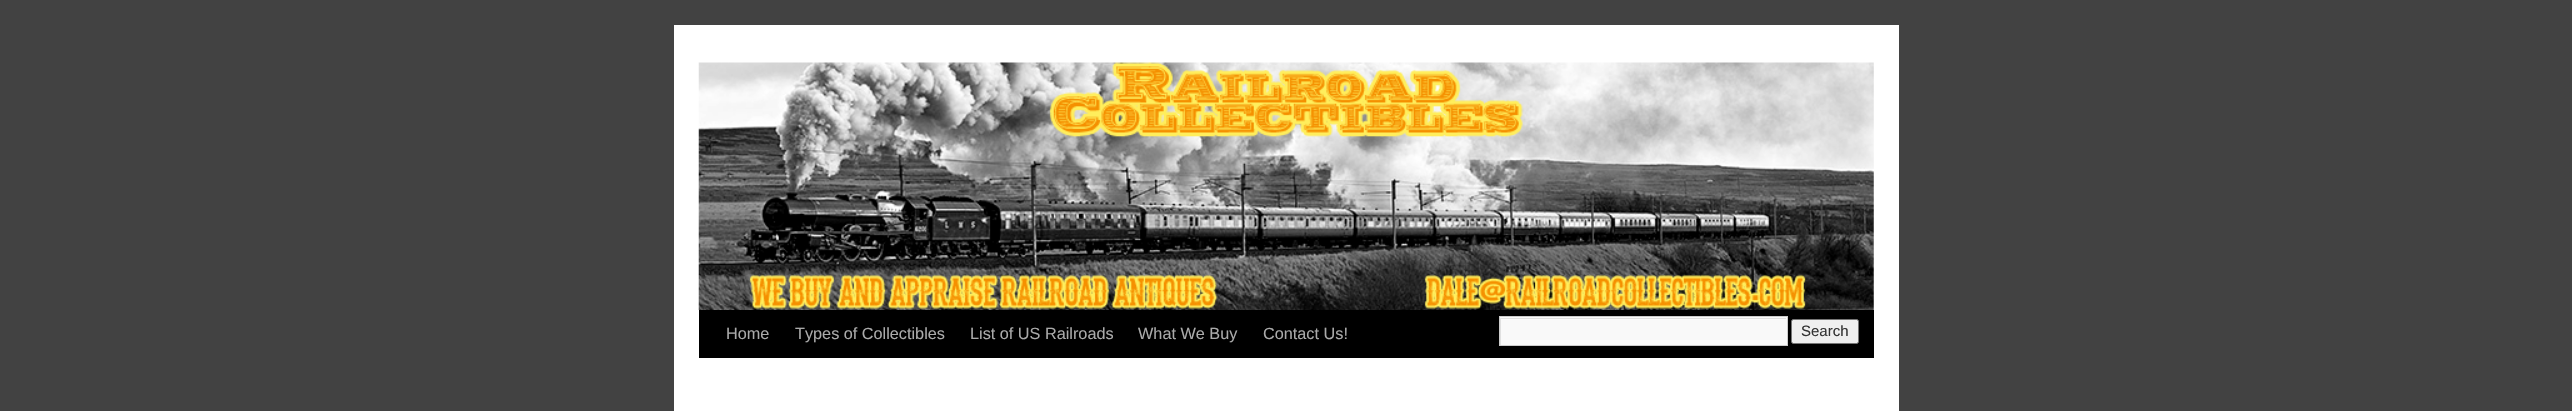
void draw(SkCanvas* canvas) {
	SkPaint fill;
	fill.setAntiAlias(true);
	auto makeFont = [&](const char* family, int weight, float size, bool italic = false) {
		SkFontStyle style(weight, SkFontStyle::kNormal_Width,
			italic ? SkFontStyle::kItalic_Slant : SkFontStyle::kUpright_Slant);
		SkFont result(fontMgr->matchFamilyStyle(family, style), size);
		result.setSubpixel(true);
		return result;
	};
	auto text = [&](const char* s, float x, float y, const SkFont& font) {
		canvas->drawString(s, x, y, font, fill);
	};
	auto box = [&](float l, float t, float r, float b) {
		canvas->drawRect(SkRect::MakeLTRB(l, t, r, b), fill);
	};
	auto picture = [&](const char* path, float l, float t, float r, float b) {
		auto image = SkImages::DeferredFromEncodedData(SkData::MakeFromFileName(path));
		canvas->drawImageRect(image, SkRect::MakeLTRB(l, t, r, b), SkSamplingOptions());
	};
	canvas->clear(0xFF424242);
	fill.setColor(0xFFFFFFFF);
	box(674, 25, 1899, 411);
	picture("image0.png", 698, 62, 1874, 310);
	fill.setColor(0xFF000000);
	box(699, 310, 1874, 358);
	fill.setColor(0xFFF9F9F9);
	box(1500, 317, 1787, 345);
	canvas->save();
	canvas->clipRect(SkRect::MakeLTRB(1500, 318, 1786, 345));
	fill.setColor(0xFFE0E0E0);
	canvas->drawPath(SkPathBuilder(SkPathFillType::kEvenOdd).moveTo(1376, 194).lineTo(1910, 194).lineTo(1910, 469).lineTo(1376, 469).close().moveTo(1501, 319).lineTo(1788, 319).lineTo(1788, 346).lineTo(1501, 346).close().detach(), fill);
	canvas->restore();
	fill.setStyle(SkPaint::kStroke_Style);
	fill.setStrokeWidth(1);
	fill.setColor(0xFFCCCCCC);
	canvas->drawRect(SkRect::MakeLTRB(1499.5f, 316.5f, 1787.5f, 345.5f), fill);
	fill.setStyle(SkPaint::kFill_Style);
	fill.setColor(0xFFEFEFEF);
	canvas->drawRoundRect(SkRect::MakeLTRB(1791.5f, 319.5f, 1858.5f, 343.5f), 2, 2, fill);
	fill.setStyle(SkPaint::kStroke_Style);
	fill.setColor(0xFF767676);
	canvas->drawRoundRect(SkRect::MakeLTRB(1791.5f, 319.5f, 1858.5f, 343.5f), 2, 2, fill);
	auto font1 = makeFont("Liberation Sans", 400, 16.25f);
	fill.setStyle(SkPaint::kFill_Style);
	fill.setColor(0xFFAAAAAA);
	text("Home", 726, 339, font1);
	text("Types of Collectibles", 795, 339, font1);
	text("List of US Railroads", 970, 339, font1);
	text("What We Buy", 1138, 339, font1);
	text("Contact Us!", 1263, 339, font1);
	auto font2 = makeFont("Liberation Sans", 400, 15);
	fill.setColor(0xFF333333);
	text("Search", 1801, 336, font2);
}
